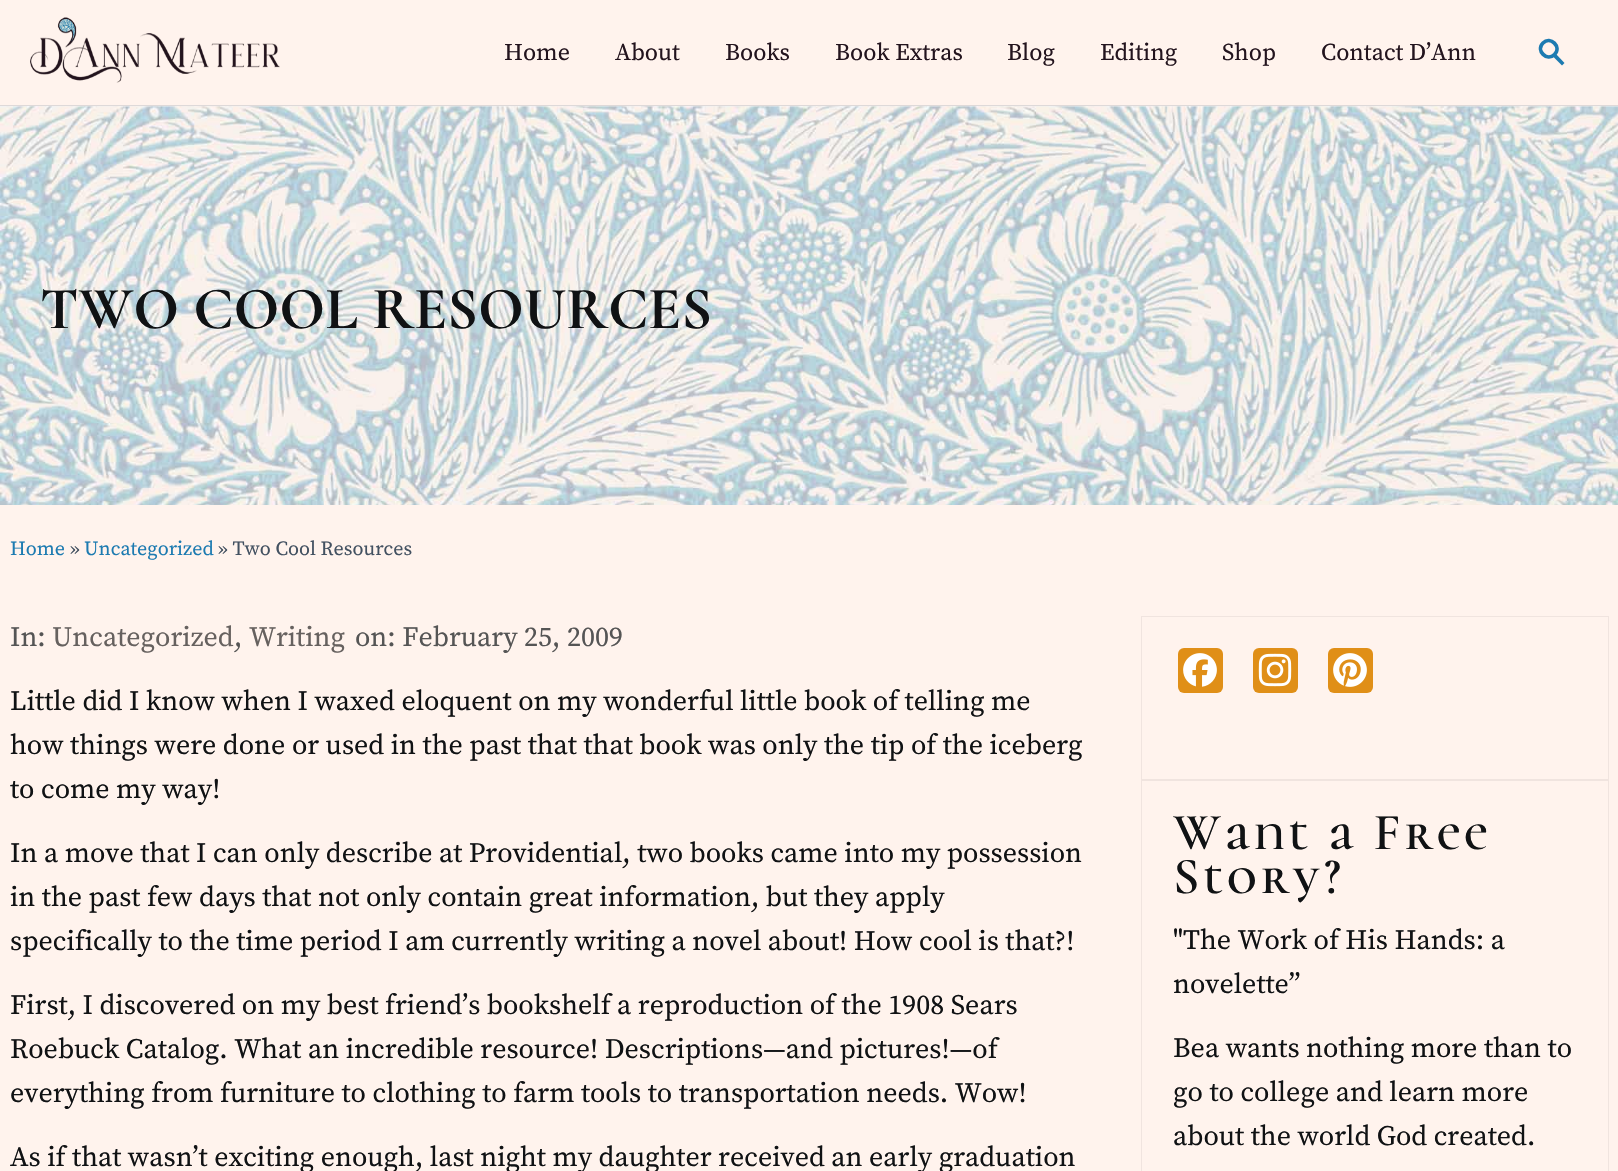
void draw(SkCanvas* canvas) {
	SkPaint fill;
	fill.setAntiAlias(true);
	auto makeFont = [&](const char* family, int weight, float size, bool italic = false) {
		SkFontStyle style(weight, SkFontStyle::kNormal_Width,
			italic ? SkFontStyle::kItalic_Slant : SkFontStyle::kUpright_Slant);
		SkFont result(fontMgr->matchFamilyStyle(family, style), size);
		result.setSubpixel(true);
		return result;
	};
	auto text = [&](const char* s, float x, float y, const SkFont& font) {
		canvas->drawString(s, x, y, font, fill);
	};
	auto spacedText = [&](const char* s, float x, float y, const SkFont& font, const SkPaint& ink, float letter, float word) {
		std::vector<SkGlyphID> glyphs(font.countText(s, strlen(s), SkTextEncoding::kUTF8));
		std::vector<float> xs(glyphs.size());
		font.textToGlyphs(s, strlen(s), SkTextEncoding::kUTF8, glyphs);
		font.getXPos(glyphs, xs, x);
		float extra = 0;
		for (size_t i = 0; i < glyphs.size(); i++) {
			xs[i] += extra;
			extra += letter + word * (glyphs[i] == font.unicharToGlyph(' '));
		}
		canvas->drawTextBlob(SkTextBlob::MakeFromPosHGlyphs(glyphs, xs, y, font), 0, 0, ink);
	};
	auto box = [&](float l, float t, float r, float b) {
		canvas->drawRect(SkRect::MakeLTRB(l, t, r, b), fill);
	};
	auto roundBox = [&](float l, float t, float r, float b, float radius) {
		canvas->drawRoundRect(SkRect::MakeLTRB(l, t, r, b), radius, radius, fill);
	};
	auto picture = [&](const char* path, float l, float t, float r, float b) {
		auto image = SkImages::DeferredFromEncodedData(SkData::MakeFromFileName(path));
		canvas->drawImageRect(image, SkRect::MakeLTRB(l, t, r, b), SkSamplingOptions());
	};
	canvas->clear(0xFFFFF3ED);
	fill.setColor(0xFFDED9D9);
	box(0, 105, 1618, 106);
	picture("image0.png", 30, 17, 280, 83);
	fill.setStyle(SkPaint::kStroke_Style);
	fill.setStrokeWidth(3.8f);
	fill.setColor(0xFF1D7BB1);
	canvas->drawPath(SkPathBuilder().moveTo(1543, 43).cubicTo(1550.5f, 35.5f, 1562, 47, 1554.5f, 54.5f).cubicTo(1547, 62, 1535.5f, 50.5f, 1543, 43).close().detach(), fill);
	fill.setStyle(SkPaint::kFill_Style);
	canvas->drawPath(SkPathBuilder().moveTo(1553, 56.5f).lineTo(1556, 54).lineTo(1564.5f, 63).lineTo(1562, 65.5f).close().detach(), fill);
	fill.setColor(0xFFF1F1F1);
	box(0, 106, 1618, 107);
	picture("image1.png", 0, 106, 1618, 505);
	fill.setStyle(SkPaint::kStroke_Style);
	fill.setStrokeWidth(1);
	fill.setColor(0xFFF0E4DF);
	canvas->drawRect(SkRect::MakeLTRB(1141.5f, 616.5f, 1608.5f, 779.5f), fill);
	fill.setStyle(SkPaint::kFill_Style);
	fill.setColor(0xFFE08F17);
	roundBox(1178, 648, 1223, 693, 6);
	picture("image2.png", 1183, 653, 1217, 687);
	roundBox(1253, 648, 1298, 693, 6);
	picture("image3.png", 1258, 653, 1292, 687);
	roundBox(1328, 648, 1373, 693, 6);
	picture("image4.png", 1333, 653, 1367, 687);
	fill.setStyle(SkPaint::kStroke_Style);
	fill.setColor(0xFFF0E4DF);
	canvas->drawRect(SkRect::MakeLTRB(1141.5f, 780.5f, 1608.5f, 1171.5f), fill);
	auto font1 = makeFont("Source Serif Pro", 400, 24);
	fill.setStyle(SkPaint::kFill_Style);
	fill.setColor(0xFF23141E);
	text("Home", 504, 60, font1);
	text("About", 615, 60, font1);
	text("Books", 725, 60, font1);
	text("Book Extras", 835, 60, font1);
	text("Blog", 1007, 60, font1);
	text("Editing", 1100, 60, font1);
	text("Shop", 1222, 60, font1);
	text("Contact D’Ann", 1321, 60, font1);
	auto font2 = makeFont("Cormorant Unicase", 700, 60);
	fill.setColor(0xFF101214);
	text("TWO COOL RESOURCES", 40, 328, font2);
	auto font3 = makeFont("Source Serif Pro", 400, 20);
	fill.setColor(0xFF1D7BB1);
	text("Home", 10, 555, font3);
	fill.setColor(0xFF435161);
	text("»", 70, 555, font3);
	fill.setColor(0xFF1D7BB1);
	text("Uncategorized", 84, 555, font3);
	fill.setColor(0xFF435161);
	text("» Two Cool Resources", 218, 555, font3);
	auto font4 = makeFont("Source Serif Pro", 400, 28);
	fill.setColor(0xFF555555);
	text("In:", 10, 646, font4);
	fill.setColor(0xFF66615F);
	text("Uncategorized", 52, 646, font4);
	fill.setColor(0xFF555555);
	text(",", 234, 646, font4);
	fill.setColor(0xFF66615F);
	text("Writing", 249, 646, font4);
	fill.setColor(0xFF555555);
	text("on: February 25, 2009", 355, 646, font4);
	fill.setColor(0xFF101214);
	text("Little did I know when I waxed eloquent on my wonderful little book of telling me", 10, 710, font4);
	text("how things were done or used in the past that that book was only the tip of the iceberg", 10, 754, font4);
	text("to come my way!", 10, 798, font4);
	text("In a move that I can only describe at Providential, two books came into my possession", 10, 862, font4);
	text("in the past few days that not only contain great information, but they apply", 10, 906, font4);
	text("specifically to the time period I am currently writing a novel about! How cool is that?!", 10, 950, font4);
	text("First, I discovered on my best friend’s bookshelf a reproduction of the 1908 Sears", 10, 1014, font4);
	text("Roebuck Catalog. What an incredible resource! Descriptions—and pictures!—of", 10, 1058, font4);
	text("everything from furniture to clothing to farm tools to transportation needs. Wow!", 10, 1102, font4);
	text("As if that wasn’t exciting enough, last night my daughter received an early graduation", 10, 1166, font4);
	auto font5 = makeFont("Cormorant Unicase", 600, 52);
	spacedText("Want a Free", 1173, 849, font5, fill, 4, 0);
	spacedText("Story?", 1173, 893, font5, fill, 4, 0);
	text("\"The Work of His Hands: a", 1173, 949, font4);
	text("novelette”", 1173, 993, font4);
	text("Bea wants nothing more than to", 1173, 1057, font4);
	text("go to college and learn more", 1173, 1101, font4);
	text("about the world God created.", 1173, 1145, font4);
}
